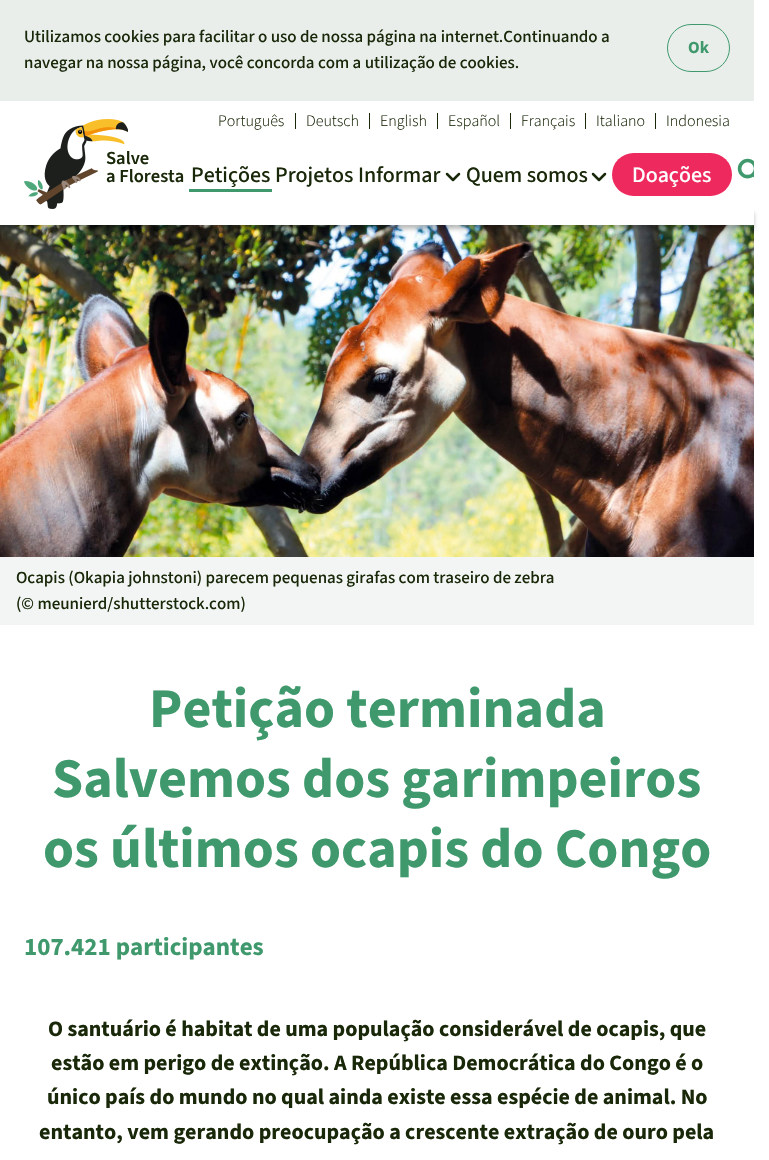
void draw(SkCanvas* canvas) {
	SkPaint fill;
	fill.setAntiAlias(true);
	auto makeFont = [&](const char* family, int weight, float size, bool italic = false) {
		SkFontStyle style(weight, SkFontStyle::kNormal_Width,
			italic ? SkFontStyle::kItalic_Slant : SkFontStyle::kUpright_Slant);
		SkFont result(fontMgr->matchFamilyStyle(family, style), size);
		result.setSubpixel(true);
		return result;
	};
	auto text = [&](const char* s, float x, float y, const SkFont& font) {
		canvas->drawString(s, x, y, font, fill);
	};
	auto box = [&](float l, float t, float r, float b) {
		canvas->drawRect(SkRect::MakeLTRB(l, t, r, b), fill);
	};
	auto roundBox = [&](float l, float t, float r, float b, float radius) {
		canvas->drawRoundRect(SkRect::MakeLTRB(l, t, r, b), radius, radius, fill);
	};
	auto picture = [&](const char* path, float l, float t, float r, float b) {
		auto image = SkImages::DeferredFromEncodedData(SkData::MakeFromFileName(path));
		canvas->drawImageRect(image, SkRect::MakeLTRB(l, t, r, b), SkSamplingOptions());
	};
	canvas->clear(0xFFFFFFFF);
	fill.setColor(0xFFE9EEEB);
	box(0, 0, 754, 101);
	fill.setStyle(SkPaint::kStroke_Style);
	fill.setStrokeWidth(1);
	fill.setColor(0xFF3F996D);
	canvas->drawRoundRect(SkRect::MakeLTRB(667.5f, 24.5f, 729.5f, 71.5f), 23.5f, 23.5f, fill);
	picture("image0.png", 24, 119, 128, 209);
	fill.setStyle(SkPaint::kFill_Style);
	fill.setColor(0xFF1A280A);
	box(295, 113, 296, 129);
	box(369, 113, 370, 129);
	box(437, 113, 438, 129);
	box(510, 113, 511, 129);
	box(585, 113, 586, 129);
	box(655, 113, 656, 129);
	fill.setColor(0xFF3F996D);
	box(189, 189, 272, 192);
	fill.setStyle(SkPaint::kStroke_Style);
	fill.setStrokeWidth(2.5f);
	fill.setStrokeCap(SkPaint::kRound_Cap);
	fill.setStrokeJoin(SkPaint::kRound_Join);
	fill.setColor(0xFF1A280A);
	canvas->drawPath(SkPathBuilder().moveTo(447, 174).lineTo(453, 180).lineTo(459, 174).detach(), fill);
	canvas->drawPath(SkPathBuilder().moveTo(593, 174).lineTo(599, 180).lineTo(605, 174).detach(), fill);
	picture("image1.png", 737, 158, 754, 179);
	fill.setStyle(SkPaint::kFill_Style);
	fill.setColor(0xFFEE295E);
	roundBox(612, 153, 732, 196, 21.5f);
	picture("image2.png", 0, 225, 754, 557);
	canvas->save();
	canvas->clipPath(SkPathBuilder(SkPathFillType::kEvenOdd).moveTo(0, 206).lineTo(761, 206).lineTo(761, 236).lineTo(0, 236).close().moveTo(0, 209).lineTo(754, 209).lineTo(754, 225).lineTo(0, 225).close().detach(), true);
	fill.setColor(0x40000000);
	fill.setMaskFilter(SkMaskFilter::MakeBlur(kNormal_SkBlurStyle, 2));
	canvas->drawRect(SkRect::MakeLTRB(0, 213, 754, 229), fill);
	fill.setMaskFilter(nullptr);
	canvas->restore();
	fill.setColor(0xFFF2F5F3);
	box(0, 557, 754, 625);
	auto font1 = makeFont("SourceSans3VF", 500, 17);
	fill.setColor(0xFF1A280A);
	text("Utilizamos cookies para facilitar o uso de nossa página na internet.Continuando a", 24, 42, font1);
	text("navegar na nossa página, você concorda com a utilização de cookies.", 24, 68, font1);
	auto font2 = makeFont("SourceSans3VF", 700, 17);
	fill.setColor(0xFF3F996D);
	text("Ok", 688, 53, font2);
	auto font3 = makeFont("SourceSans3VF", 600, 18.5f);
	fill.setColor(0xFF1A280A);
	text("Salve", 106, 164, font3);
	text("a Floresta", 106, 182, font3);
	auto font4 = makeFont("SourceSans3VF", 300, 16);
	text("Português", 218, 126, font4);
	text("Deutsch", 306, 126, font4);
	text("English", 380, 126, font4);
	text("Español", 448, 126, font4);
	text("Français", 521, 126, font4);
	text("Italiano", 596, 126, font4);
	text("Indonesia", 666, 126, font4);
	auto font5 = makeFont("SourceSans3VF", 500, 22);
	text("Petições", 191, 182, font5);
	text("Projetos", 275, 182, font5);
	text("Informar", 358, 182, font5);
	text("Quem somos", 466, 182, font5);
	fill.setColor(0xFFFFFFFF);
	text("Doações", 632, 182, font5);
	fill.setColor(0xFF1A280A);
	text("Ocapis (Okapia johnstoni) parecem pequenas girafas com traseiro de zebra", 16, 583, font1);
	text("(© meunierd/shutterstock.com)", 16, 609, font1);
	auto font6 = makeFont("SourceSans3VF", 700, 56);
	fill.setColor(0xFF3F996D);
	text("Petição terminada", 149, 727, font6);
	text("Salvemos dos garimpeiros", 52, 797, font6);
	text("os últimos ocapis do Congo", 43, 867, font6);
	auto font7 = makeFont("SourceSans3VF", 700, 25);
	text("107.421 participantes", 24, 955, font7);
	auto font8 = makeFont("SourceSans3VF", 700, 22);
	fill.setColor(0xFF1A280A);
	text("O santuário é habitat de uma população considerável de ocapis, que", 48, 1036, font8);
	text("estão em perigo de extinção. A República Democrática do Congo é o", 51, 1070, font8);
	text("único país do mundo no qual ainda existe essa espécie de animal. No", 47, 1104, font8);
	text("entanto, vem gerando preocupação a crescente extração de ouro pela", 39, 1139, font8);
}
